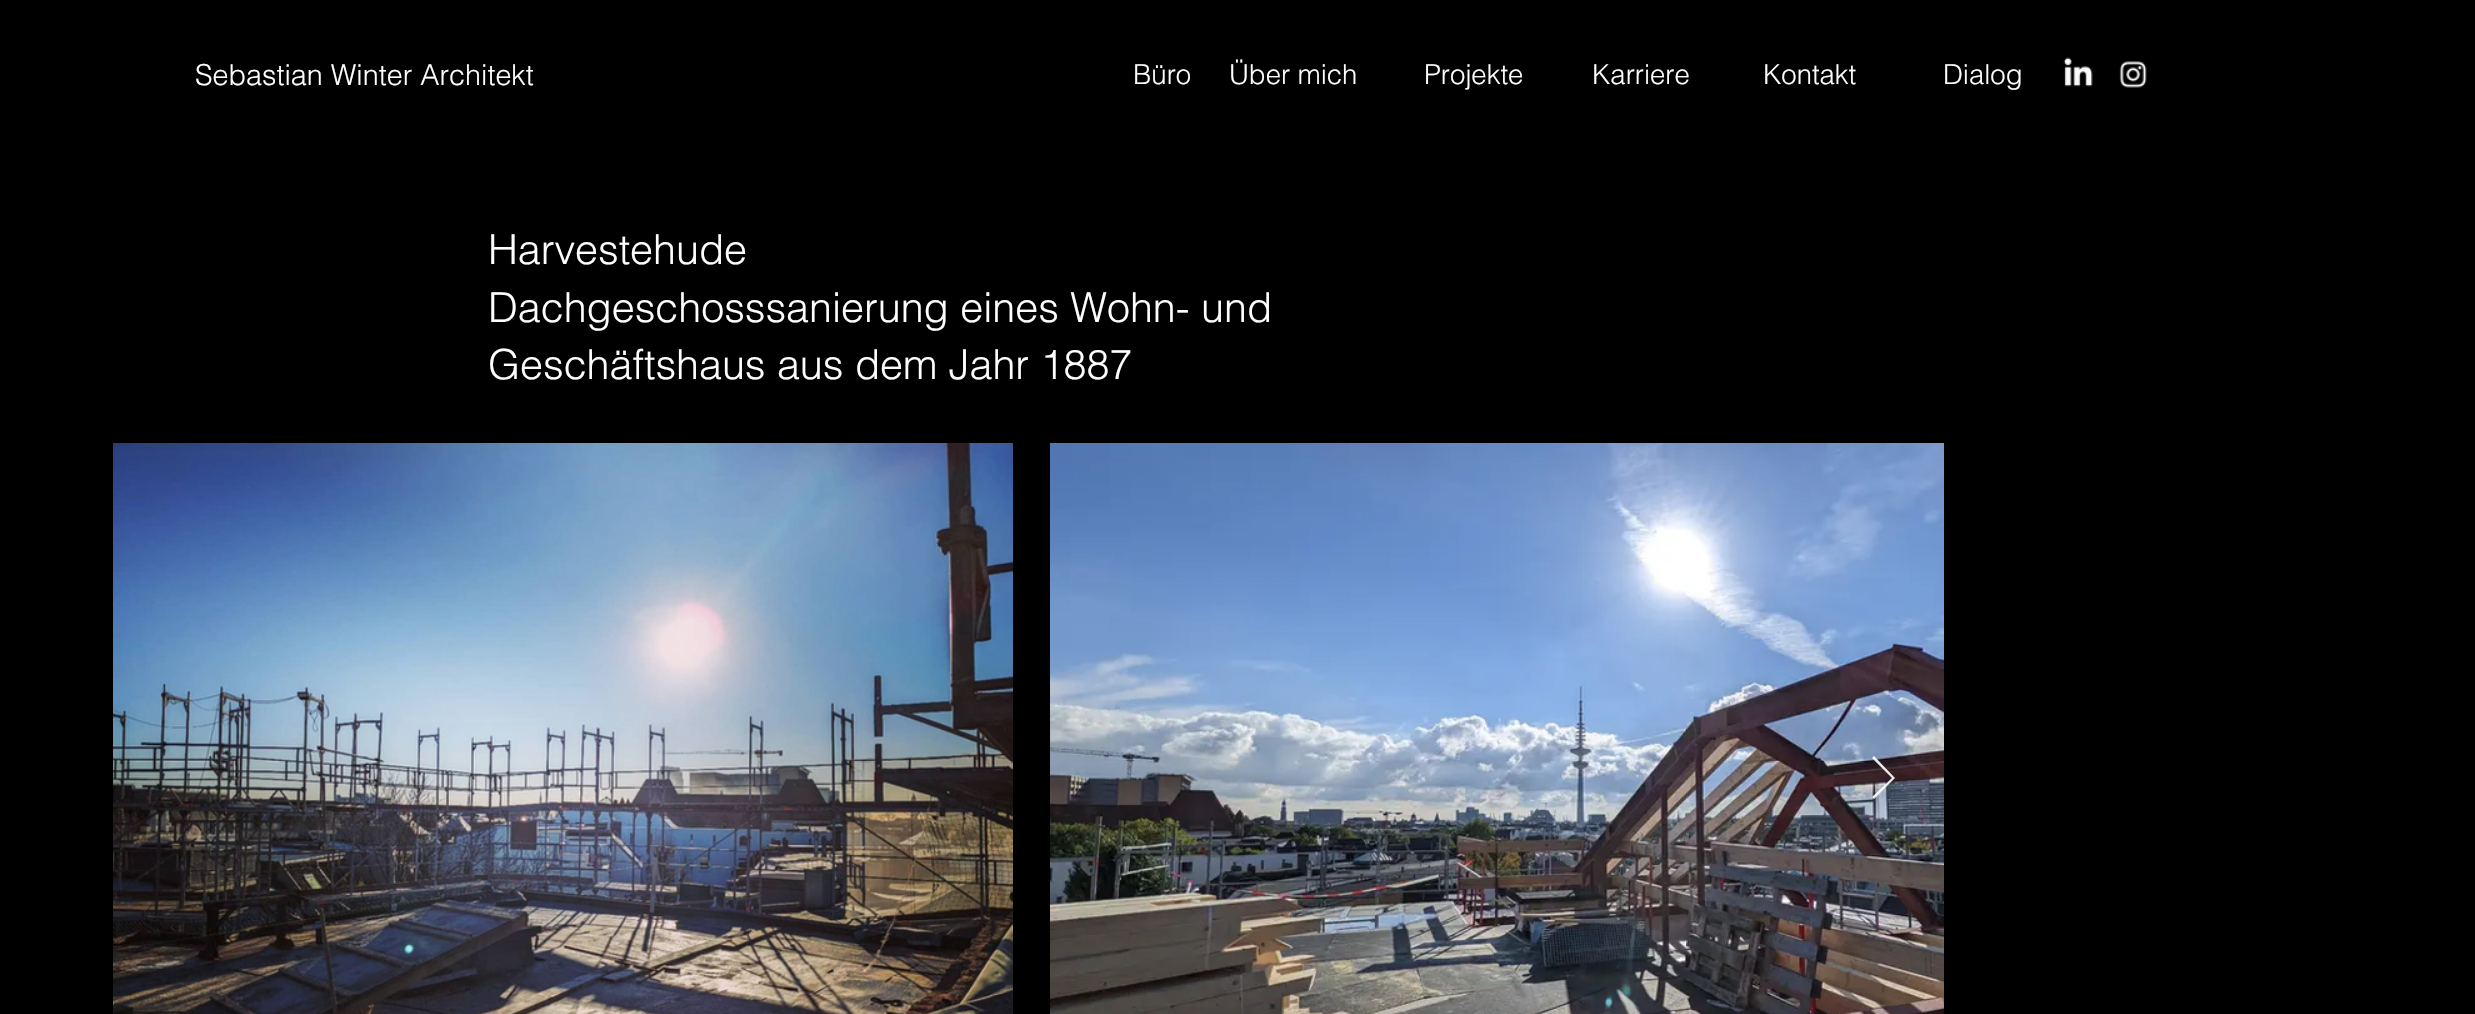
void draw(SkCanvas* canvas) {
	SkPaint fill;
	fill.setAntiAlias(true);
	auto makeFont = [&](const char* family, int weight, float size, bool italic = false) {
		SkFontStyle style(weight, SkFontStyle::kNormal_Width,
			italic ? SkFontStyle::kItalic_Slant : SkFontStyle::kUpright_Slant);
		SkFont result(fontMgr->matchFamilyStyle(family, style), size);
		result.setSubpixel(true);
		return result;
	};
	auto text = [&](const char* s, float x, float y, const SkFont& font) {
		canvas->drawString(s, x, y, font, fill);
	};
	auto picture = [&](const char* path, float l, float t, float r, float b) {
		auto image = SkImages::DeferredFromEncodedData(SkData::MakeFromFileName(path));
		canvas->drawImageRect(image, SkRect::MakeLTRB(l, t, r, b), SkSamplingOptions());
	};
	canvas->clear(0xFF000000);
	picture("image0.png", 2063, 57, 2093, 87);
	picture("image1.png", 2119, 61, 2147, 88);
	picture("image2.png", 113, 443, 1013, 1014);
	picture("image3.png", 1050, 443, 1944, 1014);
	fill.setColor(0xE6FFFFFF);
	canvas->drawPath(SkPathBuilder().moveTo(1872, 758).lineTo(1874, 756).lineTo(1895, 778).lineTo(1874, 799).lineTo(1872, 797).lineTo(1892, 778).close().detach(), fill);
	auto font1 = makeFont("helvetica", 300, 28.75f);
	fill.setColor(0xFFFFFFFF);
	text("Sebastian Winter Architekt", 195, 85, font1);
	auto font2 = makeFont("helvetica", 300, 27.5f);
	text("Büro", 1133, 84, font2);
	text("Über mich", 1229, 84, font2);
	text("Projekte", 1424, 84, font2);
	text("Karriere", 1592, 84, font2);
	text("Kontakt", 1763, 84, font2);
	text("Dialog", 1943, 84, font2);
	auto font3 = makeFont("helvetica", 300, 41.25f);
	text("Harvestehude", 488, 264, font3);
	text("Dachgeschosssanierung eines Wohn- und", 488, 322, font3);
	text("Geschäftshaus aus dem Jahr 1887", 488, 379, font3);
}
